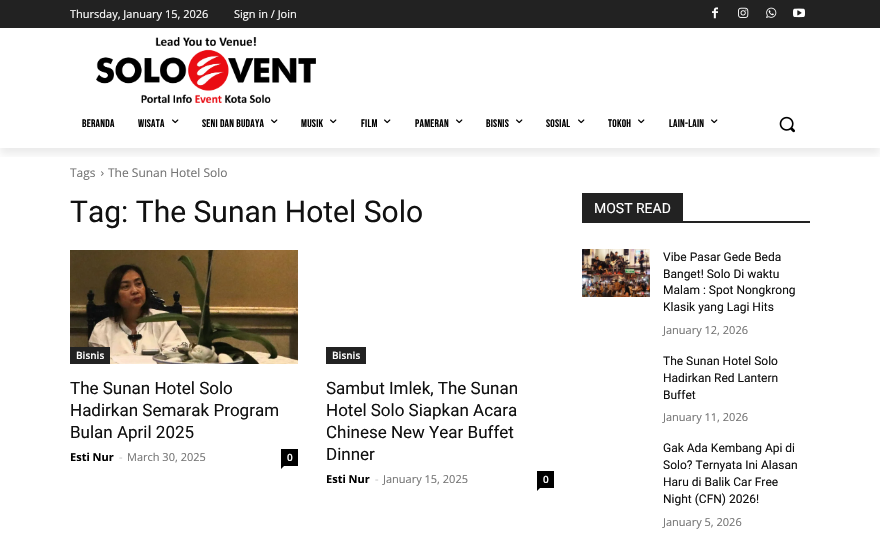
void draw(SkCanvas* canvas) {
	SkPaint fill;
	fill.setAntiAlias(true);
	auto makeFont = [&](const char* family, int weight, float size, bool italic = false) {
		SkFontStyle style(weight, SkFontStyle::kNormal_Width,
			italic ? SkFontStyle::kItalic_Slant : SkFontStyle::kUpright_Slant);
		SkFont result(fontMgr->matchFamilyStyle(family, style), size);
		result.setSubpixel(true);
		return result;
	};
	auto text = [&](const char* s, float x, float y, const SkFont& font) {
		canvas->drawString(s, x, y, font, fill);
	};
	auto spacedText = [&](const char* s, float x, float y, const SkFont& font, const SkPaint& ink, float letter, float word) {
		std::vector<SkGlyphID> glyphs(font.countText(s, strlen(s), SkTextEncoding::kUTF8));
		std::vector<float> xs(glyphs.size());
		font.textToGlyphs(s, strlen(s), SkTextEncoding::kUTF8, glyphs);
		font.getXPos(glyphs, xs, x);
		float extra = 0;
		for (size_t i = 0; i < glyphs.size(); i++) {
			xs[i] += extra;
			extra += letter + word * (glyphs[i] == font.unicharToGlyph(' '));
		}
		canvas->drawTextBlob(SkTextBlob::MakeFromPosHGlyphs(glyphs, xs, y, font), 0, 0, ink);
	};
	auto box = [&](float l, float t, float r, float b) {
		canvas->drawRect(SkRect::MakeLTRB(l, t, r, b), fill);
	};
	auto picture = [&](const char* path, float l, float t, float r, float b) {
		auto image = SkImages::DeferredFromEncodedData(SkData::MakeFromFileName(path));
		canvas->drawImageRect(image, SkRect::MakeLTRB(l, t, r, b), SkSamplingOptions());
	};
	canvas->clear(0xFFFFFFFF);
	fill.setColor(0xFF222222);
	box(0, 0, 880, 28);
	picture("image0.png", 712, 7, 718, 19);
	picture("image1.png", 738, 7, 749, 18);
	picture("image2.png", 766, 7, 777, 18);
	picture("image3.png", 793, 8, 805, 18);
	picture("image4.png", 96, 37, 316, 103);
	canvas->save();
	canvas->clipRect(SkRect::MakeLTRB(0, 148, 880, 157));
	fill.setColor(0x14000000);
	fill.setMaskFilter(SkMaskFilter::MakeBlur(kNormal_SkBlurStyle, 4));
	canvas->drawRect(SkRect::MakeLTRB(0, 6, 880, 154), fill);
	fill.setMaskFilter(nullptr);
	canvas->restore();
	picture("image5.png", 172, 119, 179, 124);
	picture("image5.png", 271, 119, 278, 124);
	picture("image5.png", 330, 119, 337, 124);
	picture("image5.png", 384, 119, 391, 124);
	picture("image5.png", 456, 119, 463, 124);
	picture("image5.png", 516, 119, 523, 124);
	picture("image5.png", 578, 119, 585, 124);
	picture("image5.png", 638, 119, 645, 124);
	picture("image5.png", 711, 119, 718, 124);
	picture("image6.png", 779, 116, 795, 133);
	picture("image7.png", 101, 171, 104, 176);
	picture("image8.png", 70, 250, 298, 364);
	fill.setColor(0xFF222222);
	box(70, 347, 110, 364);
	fill.setColor(0xFF000000);
	box(281, 449, 298, 466);
	canvas->drawPath(SkPathBuilder().moveTo(281, 466).lineTo(284, 466).lineTo(281, 469).close().detach(), fill);
	fill.setColor(0xFF222222);
	box(326, 347, 366, 364);
	fill.setColor(0xFF000000);
	box(537, 471, 554, 488);
	canvas->drawPath(SkPathBuilder().moveTo(537, 488).lineTo(540, 488).lineTo(537, 491).close().detach(), fill);
	fill.setColor(0xFF222222);
	box(582, 221, 810, 223);
	box(582, 193, 683, 221);
	picture("image9.png", 582, 249, 650, 297);
	auto font1 = makeFont("Open Sans", 400, 11);
	fill.setColor(0xFFFFFFFF);
	text("Thursday, January 15, 2026", 70, 18, font1);
	text("Sign in / Join", 234, 18, font1);
	auto font2 = makeFont("Bebas Neue", 400, 11);
	fill.setColor(0xFF000000);
	spacedText("BERANDA", 82, 127, font2, fill, 0.25f, 0);
	spacedText("WISATA", 138, 127, font2, fill, 0.25f, 0);
	spacedText("SENI DAN BUDAYA", 202, 127, font2, fill, 0.25f, 0);
	spacedText("MUSIK", 301, 127, font2, fill, 0.25f, 0);
	spacedText("FILM", 361, 127, font2, fill, 0.25f, 0);
	spacedText("PAMERAN", 415, 127, font2, fill, 0.25f, 0);
	spacedText("BISNIS", 486, 127, font2, fill, 0.25f, 0);
	spacedText("SOSIAL", 546, 127, font2, fill, 0.25f, 0);
	spacedText("TOKOH", 608, 127, font2, fill, 0.25f, 0);
	spacedText("LAIN-LAIN", 669, 127, font2, fill, 0.25f, 0);
	auto font3 = makeFont("Open Sans", 400, 12);
	fill.setColor(0xFF747474);
	text("Tags", 70, 177, font3);
	text("The Sunan Hotel Solo", 108, 177, font3);
	auto font4 = makeFont("Roboto", 400, 30);
	fill.setColor(0xFF111111);
	text("Tag: The Sunan Hotel Solo", 70, 222, font4);
	auto font5 = makeFont("Open Sans", 600, 10);
	fill.setColor(0xFFFFFFFF);
	text("Bisnis", 76, 359, font5);
	auto font6 = makeFont("Roboto", 400, 17);
	fill.setColor(0xFF111111);
	text("The Sunan Hotel Solo", 70, 394, font6);
	text("Hadirkan Semarak Program", 70, 416, font6);
	text("Bulan April 2025", 70, 438, font6);
	auto font7 = makeFont("Open Sans", 700, 11);
	fill.setColor(0xFF000000);
	text("Esti Nur", 70, 461, font7);
	fill.setColor(0xFFCCCCCC);
	text("-", 119, 461, font1);
	fill.setColor(0xFF747474);
	text("March 30, 2025", 127, 461, font1);
	fill.setColor(0xFFFFFFFF);
	text("0", 287, 461, font5);
	text("Bisnis", 332, 359, font5);
	fill.setColor(0xFF111111);
	text("Sambut Imlek, The Sunan", 326, 394, font6);
	text("Hotel Solo Siapkan Acara", 326, 416, font6);
	text("Chinese New Year Buffet", 326, 438, font6);
	text("Dinner", 326, 460, font6);
	fill.setColor(0xFF000000);
	text("Esti Nur", 326, 483, font7);
	fill.setColor(0xFFCCCCCC);
	text("-", 375, 483, font1);
	fill.setColor(0xFF747474);
	text("January 15, 2025", 383, 483, font1);
	fill.setColor(0xFFFFFFFF);
	text("0", 543, 483, font5);
	auto font8 = makeFont("Roboto", 400, 14);
	text("MOST READ", 594, 213, font8);
	auto font9 = makeFont("Roboto", 400, 12);
	fill.setColor(0xFF111111);
	text("Vibe Pasar Gede Beda", 663, 261, font9);
	text("Banget! Solo Di waktu", 663, 278, font9);
	text("Malam : Spot Nongkrong", 663, 294, font9);
	text("Klasik yang Lagi Hits", 663, 311, font9);
	fill.setColor(0xFF747474);
	text("January 12, 2026", 663, 334, font1);
	fill.setColor(0xFF111111);
	text("The Sunan Hotel Solo", 663, 365, font9);
	text("Hadirkan Red Lantern", 663, 382, font9);
	text("Buffet", 663, 399, font9);
	fill.setColor(0xFF747474);
	text("January 11, 2026", 663, 421, font1);
	fill.setColor(0xFF111111);
	text("Gak Ada Kembang Api di", 663, 452, font9);
	text("Solo? Ternyata Ini Alasan", 663, 469, font9);
	text("Haru di Balik Car Free", 663, 486, font9);
	text("Night (CFN) 2026!", 663, 503, font9);
	fill.setColor(0xFF747474);
	text("January 5, 2026", 663, 526, font1);
}
